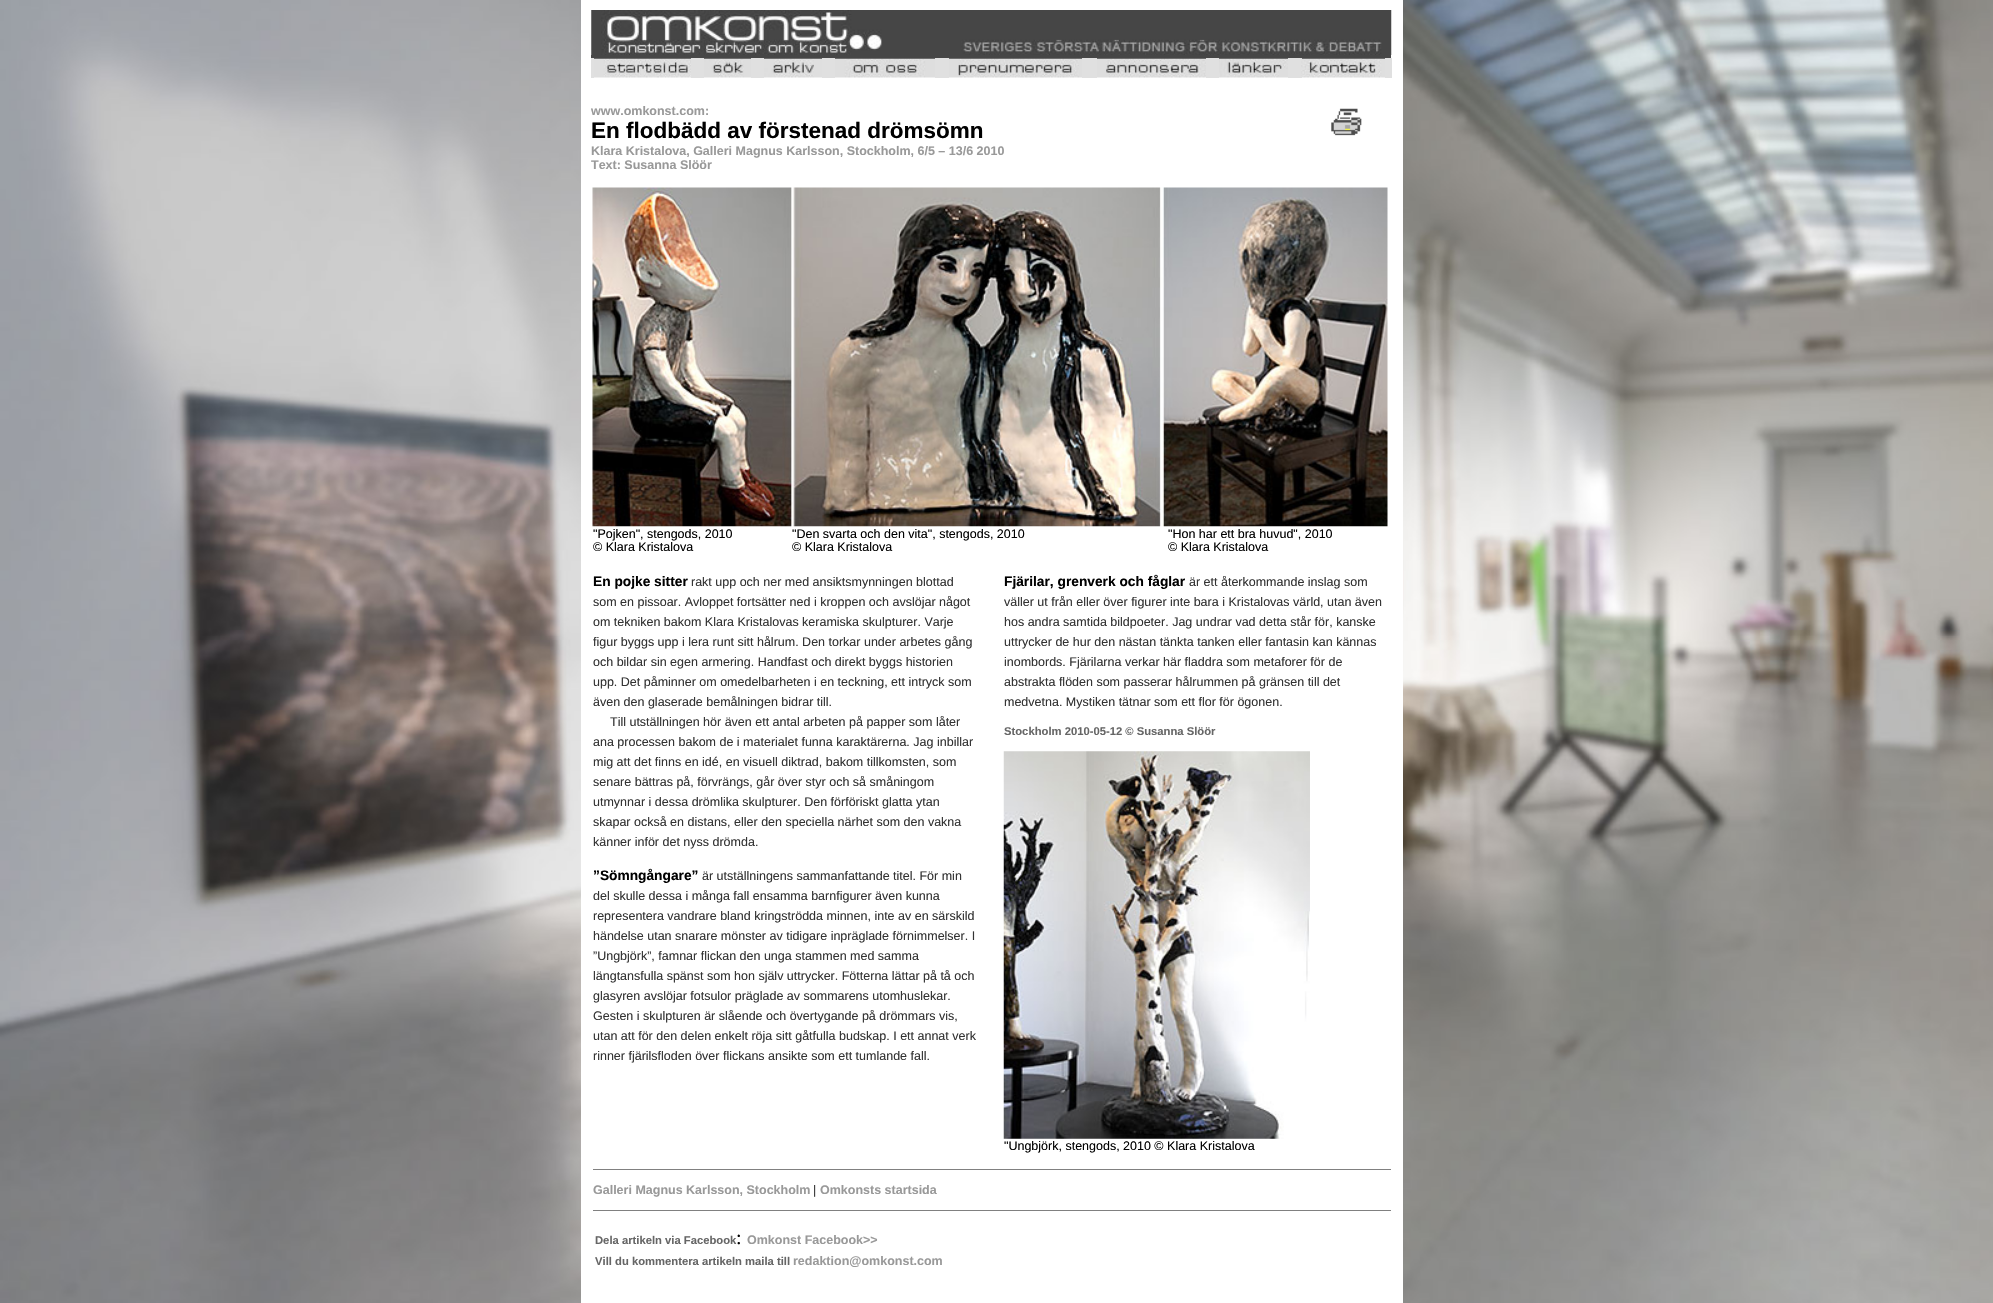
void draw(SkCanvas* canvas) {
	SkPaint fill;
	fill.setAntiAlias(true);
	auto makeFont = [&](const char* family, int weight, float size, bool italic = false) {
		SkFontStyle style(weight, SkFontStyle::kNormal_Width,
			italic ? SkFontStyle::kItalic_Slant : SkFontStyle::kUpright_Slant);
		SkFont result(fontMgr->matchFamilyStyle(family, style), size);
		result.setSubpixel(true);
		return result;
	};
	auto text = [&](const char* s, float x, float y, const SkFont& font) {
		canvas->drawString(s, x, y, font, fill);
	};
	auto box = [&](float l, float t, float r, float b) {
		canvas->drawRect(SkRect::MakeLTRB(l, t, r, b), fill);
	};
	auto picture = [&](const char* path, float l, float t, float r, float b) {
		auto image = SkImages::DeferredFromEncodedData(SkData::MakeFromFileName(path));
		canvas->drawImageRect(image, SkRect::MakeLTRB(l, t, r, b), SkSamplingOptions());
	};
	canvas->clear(0xFFFFFFFF);
	picture("image0.png", 0, 0, 1993, 1303);
	fill.setColor(0xFFFFFFFF);
	box(581, 0, 1403, 1303);
	picture("image1.png", 591, 10, 1392, 55);
	fill.setColor(0xFF464646);
	box(591, 55, 1391, 59);
	fill.setColor(0xFFE0E0E0);
	box(591, 58, 594, 78);
	picture("image2.png", 594, 58, 691, 78);
	box(691, 58, 704, 78);
	picture("image3.png", 704, 58, 751, 78);
	box(751, 58, 764, 78);
	picture("image4.png", 764, 58, 822, 78);
	box(822, 58, 835, 78);
	picture("image5.png", 835, 58, 935, 78);
	box(935, 58, 949, 78);
	picture("image6.png", 949, 58, 1082, 78);
	box(1082, 58, 1097, 78);
	picture("image7.png", 1097, 58, 1206, 78);
	box(1206, 58, 1219, 78);
	picture("image8.png", 1219, 58, 1288, 78);
	box(1288, 58, 1302, 78);
	picture("image9.png", 1301, 58, 1385, 78);
	box(1385, 58, 1392, 78);
	picture("image10.png", 1331, 108, 1362, 136);
	picture("image11.png", 592, 187, 1388, 527);
	picture("image12.png", 1003, 751, 1310, 1139);
	fill.setColor(0xFF808080);
	box(593, 1169, 1391, 1170);
	box(593, 1210, 1391, 1211);
	auto font1 = makeFont("Liberation Sans", 700, 12.5f);
	fill.setColor(0xFF999999);
	text("www.omkonst.com:", 591, 115, font1);
	auto font2 = makeFont("Liberation Sans", 700, 22.5f);
	fill.setColor(0xFF000000);
	text("En flodbädd av förstenad drömsömn", 591, 138, font2);
	fill.setColor(0xFF999999);
	text("Klara Kristalova, Galleri Magnus Karlsson, Stockholm, 6/5 – 13/6 2010", 591, 155, font1);
	text("Text: Susanna Slöör", 591, 169, font1);
	auto font3 = makeFont("Liberation Sans", 400, 12.5f);
	fill.setColor(0xFF000000);
	text("\"Pojken\", stengods, 2010", 593, 538, font3);
	text("© Klara Kristalova", 593, 551, font3);
	text("\"Den svarta och den vita\", stengods, 2010", 792, 538, font3);
	text("© Klara Kristalova", 792, 551, font3);
	text("\"Hon har ett bra huvud\", 2010", 1168, 538, font3);
	text("© Klara Kristalova", 1168, 551, font3);
	auto font4 = makeFont("Liberation Sans", 700, 13.75f);
	text("En pojke sitter", 593, 586, font4);
	fill.setColor(0xFF333333);
	text("rakt upp och ner med ansiktsmynningen blottad", 691, 586, font3);
	text("som en pissoar. Avloppet fortsätter ned i kroppen och avslöjar något", 593, 606, font3);
	text("om tekniken bakom Klara Kristalovas keramiska skulpturer. Varje", 593, 626, font3);
	text("figur byggs upp i lera runt sitt hålrum. Den torkar under arbetes gång", 593, 646, font3);
	text("och bildar sin egen armering. Handfast och direkt byggs historien", 593, 666, font3);
	text("upp. Det påminner om omedelbarheten i en teckning, ett intryck som", 593, 686, font3);
	text("även den glaserade bemålningen bidrar till.", 593, 706, font3);
	text("Till utställningen hör även ett antal arbeten på papper som låter", 610, 726, font3);
	text("ana processen bakom de i materialet funna karaktärerna. Jag inbillar", 593, 746, font3);
	text("mig att det finns en idé, en visuell diktrad, bakom tillkomsten, som", 593, 766, font3);
	text("senare bättras på, förvrängs, går över styr och så småningom", 593, 786, font3);
	text("utmynnar i dessa drömlika skulpturer. Den förföriskt glatta ytan", 593, 806, font3);
	text("skapar också en distans, eller den speciella närhet som den vakna", 593, 826, font3);
	text("känner inför det nyss drömda.", 593, 846, font3);
	fill.setColor(0xFF000000);
	text("”Sömngångare”", 593, 880, font4);
	fill.setColor(0xFF333333);
	text("är utställningens sammanfattande titel. För min", 702, 880, font3);
	text("del skulle dessa i många fall ensamma barnfigurer även kunna", 593, 900, font3);
	text("representera vandrare bland kringströdda minnen, inte av en särskild", 593, 920, font3);
	text("händelse utan snarare mönster av tidigare inpräglade förnimmelser. I", 593, 940, font3);
	text("”Ungbjörk”, famnar flickan den unga stammen med samma", 593, 960, font3);
	text("längtansfulla spänst som hon själv uttrycker. Fötterna lättar på tå och", 593, 980, font3);
	text("glasyren avslöjar fotsulor präglade av sommarens utomhuslekar.", 593, 1000, font3);
	text("Gesten i skulpturen är slående och övertygande på drömmars vis,", 593, 1020, font3);
	text("utan att för den delen enkelt röja sitt gåtfulla budskap. I ett annat verk", 593, 1040, font3);
	text("rinner fjärilsfloden över flickans ansikte som ett tumlande fall.", 593, 1060, font3);
	fill.setColor(0xFF000000);
	text("Fjärilar, grenverk och fåglar", 1004, 586, font4);
	fill.setColor(0xFF333333);
	text("är ett återkommande inslag som", 1189, 586, font3);
	text("väller ut från eller över figurer inte bara i Kristalovas värld, utan även", 1004, 606, font3);
	text("hos andra samtida bildpoeter. Jag undrar vad detta står för, kanske", 1004, 626, font3);
	text("uttrycker de hur den nästan tänkta tanken eller fantasin kan kännas", 1004, 646, font3);
	text("inombords. Fjärilarna verkar här fladdra som metaforer för de", 1004, 666, font3);
	text("abstrakta flöden som passerar hålrummen på gränsen till det", 1004, 686, font3);
	text("medvetna. Mystiken tätnar som ett flor för ögonen.", 1004, 706, font3);
	auto font5 = makeFont("Liberation Sans", 700, 11.25f);
	fill.setColor(0xFF666666);
	text("Stockholm 2010-05-12 © Susanna Slöör", 1004, 735, font5);
	fill.setColor(0xFF000000);
	text("\"Ungbjörk, stengods, 2010 © Klara Kristalova", 1004, 1150, font3);
	fill.setColor(0xFF999999);
	text("Galleri Magnus Karlsson, Stockholm", 593, 1194, font1);
	fill.setColor(0xFF333333);
	text("|", 813, 1194, font3);
	fill.setColor(0xFF999999);
	text("Omkonsts startsida", 820, 1194, font1);
	fill.setColor(0xFF666666);
	text("Dela artikeln via Facebook", 595, 1244, font5);
	auto font6 = makeFont("Liberation Serif", 400, 20);
	fill.setColor(0xFF000000);
	text(":", 736, 1244, font6);
	fill.setColor(0xFF999999);
	text("Omkonst Facebook>>", 747, 1244, font1);
	fill.setColor(0xFF666666);
	text("Vill du kommentera artikeln maila till", 595, 1265, font5);
	fill.setColor(0xFF999999);
	text("redaktion@omkonst.com", 793, 1265, font1);
}
